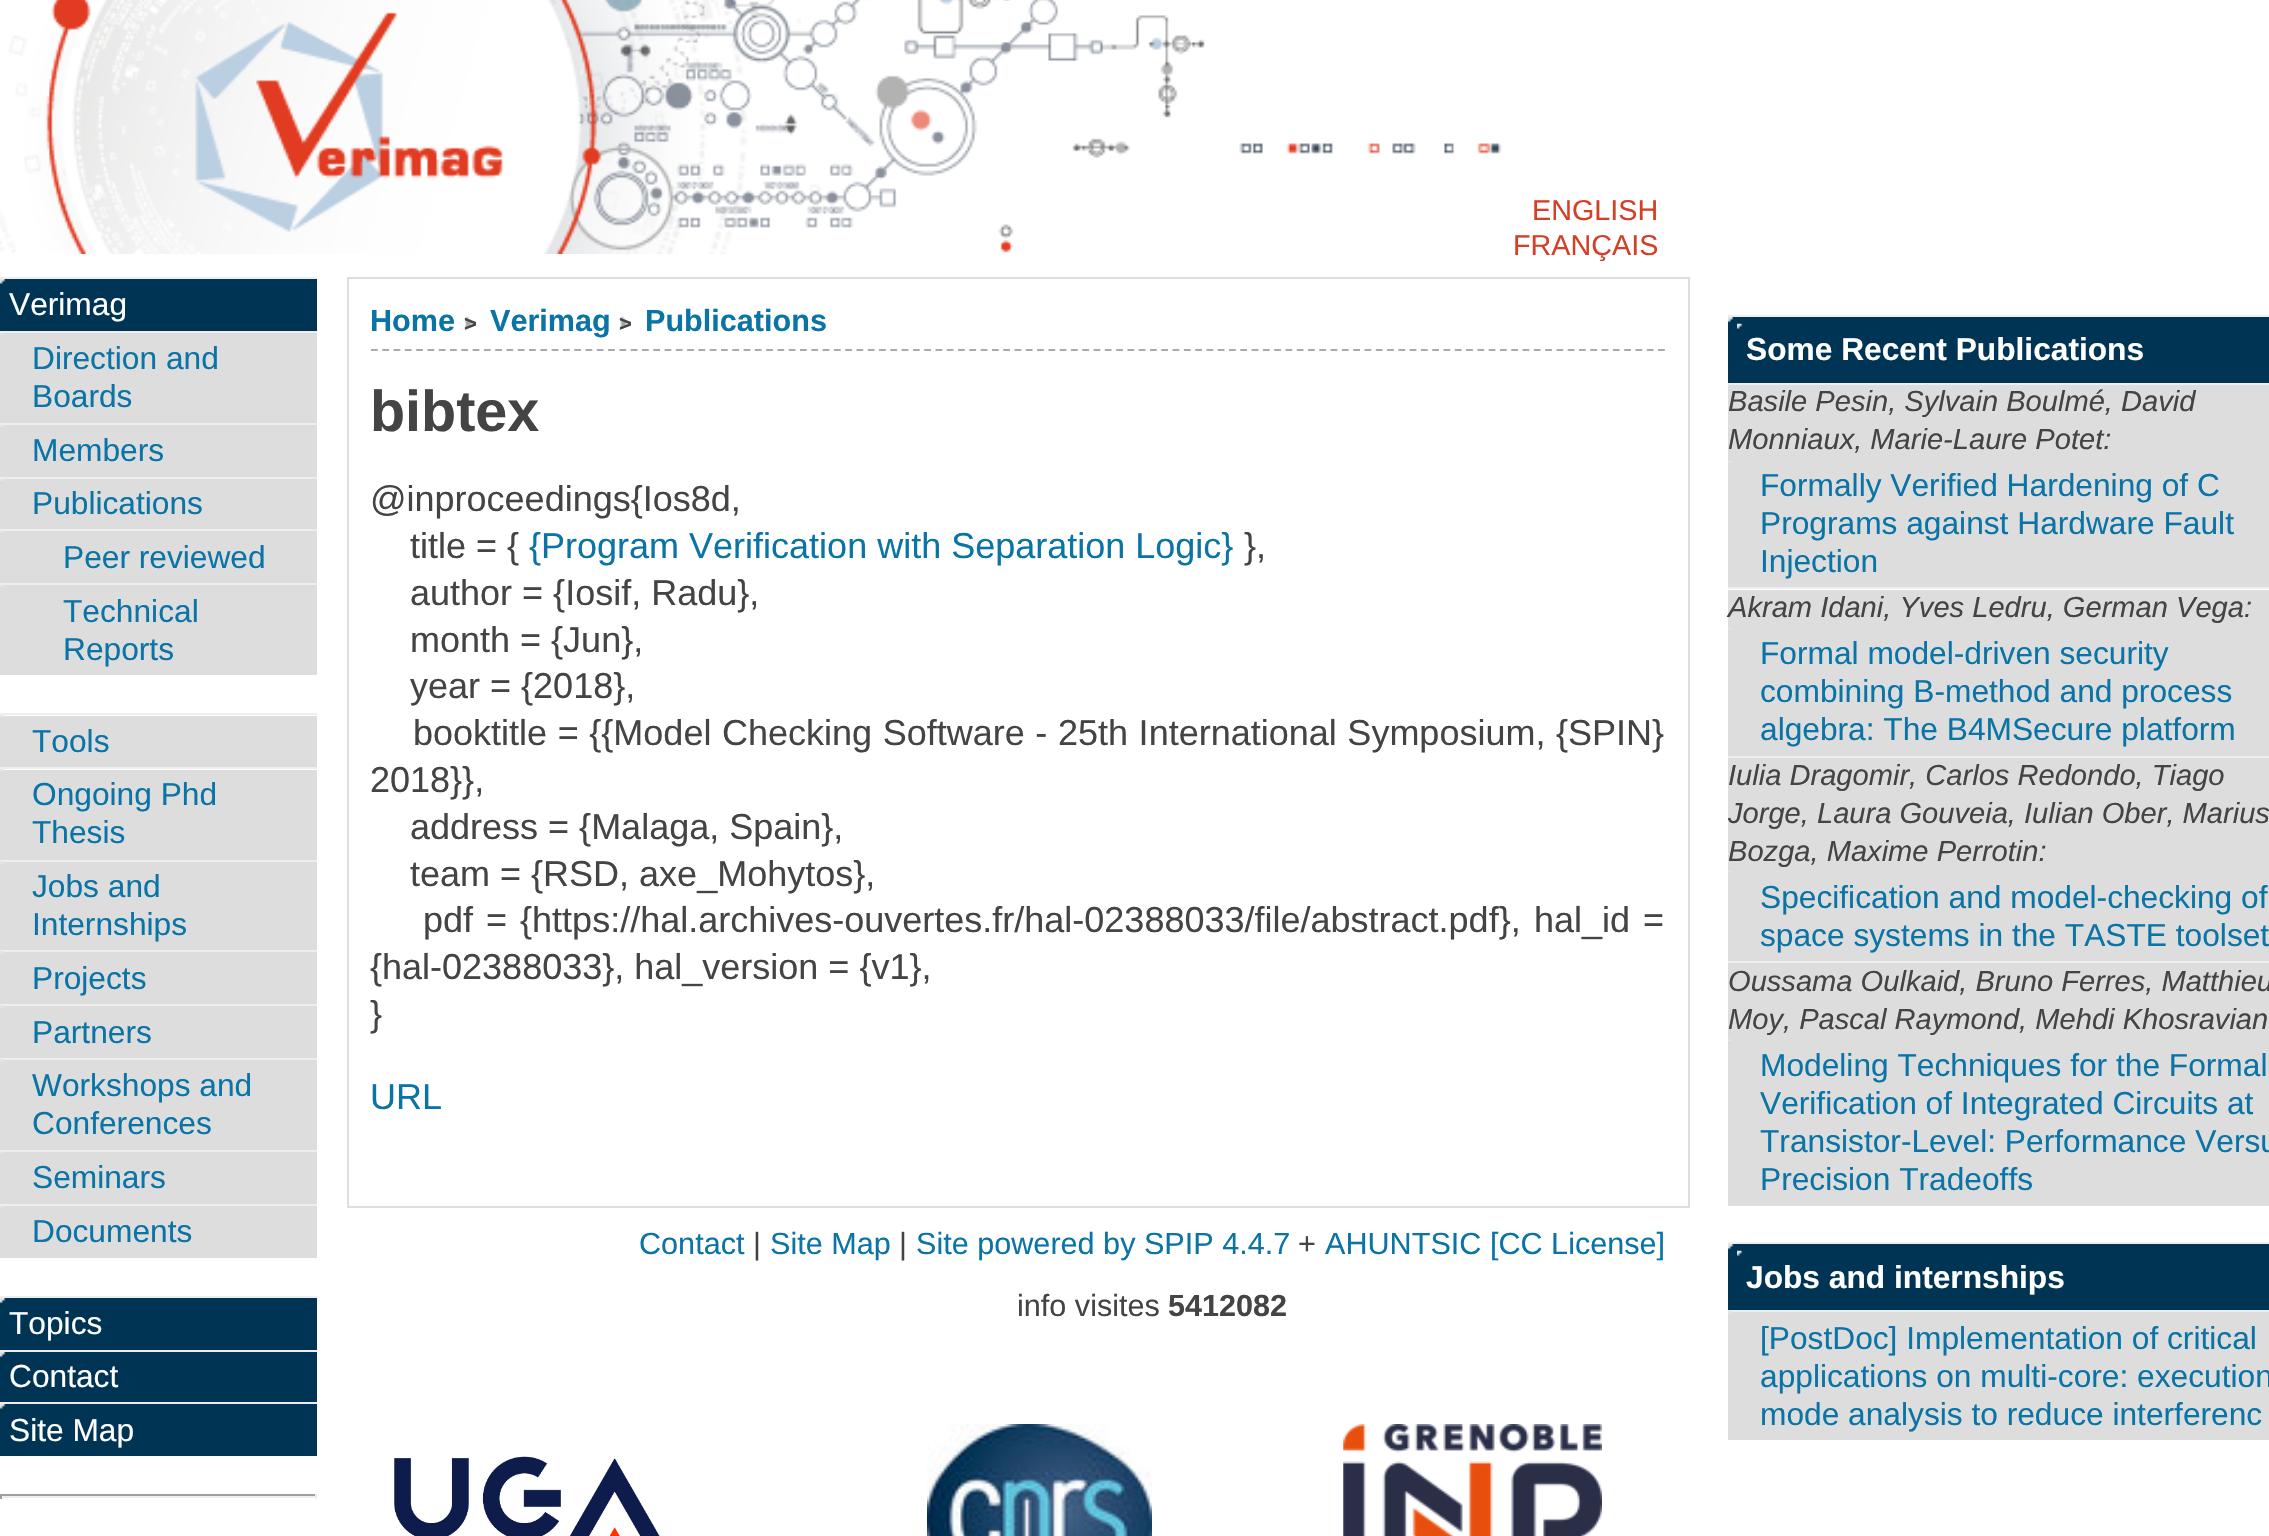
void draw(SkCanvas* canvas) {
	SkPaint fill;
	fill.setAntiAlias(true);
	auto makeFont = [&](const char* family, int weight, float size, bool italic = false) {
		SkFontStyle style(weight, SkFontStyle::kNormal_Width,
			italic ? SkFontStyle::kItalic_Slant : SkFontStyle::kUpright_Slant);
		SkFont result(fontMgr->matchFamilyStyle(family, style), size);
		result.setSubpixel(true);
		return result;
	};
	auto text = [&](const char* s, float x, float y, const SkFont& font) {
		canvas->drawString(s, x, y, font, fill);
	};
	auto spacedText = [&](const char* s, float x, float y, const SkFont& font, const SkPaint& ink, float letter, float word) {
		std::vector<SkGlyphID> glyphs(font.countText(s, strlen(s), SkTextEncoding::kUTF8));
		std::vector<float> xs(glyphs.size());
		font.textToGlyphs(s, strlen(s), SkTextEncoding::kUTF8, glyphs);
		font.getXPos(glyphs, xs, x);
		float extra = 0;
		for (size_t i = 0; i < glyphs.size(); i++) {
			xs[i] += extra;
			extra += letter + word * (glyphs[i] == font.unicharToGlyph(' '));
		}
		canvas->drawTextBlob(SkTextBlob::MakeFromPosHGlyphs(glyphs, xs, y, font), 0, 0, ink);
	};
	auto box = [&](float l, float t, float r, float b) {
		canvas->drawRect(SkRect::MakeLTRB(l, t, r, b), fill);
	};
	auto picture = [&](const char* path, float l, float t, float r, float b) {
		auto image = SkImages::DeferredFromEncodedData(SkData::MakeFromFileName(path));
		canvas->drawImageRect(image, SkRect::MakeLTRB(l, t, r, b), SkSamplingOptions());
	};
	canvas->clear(0xFFFFFFFF);
	picture("image0.png", 0, 0, 1502, 254);
	fill.setColor(0xFFEEEEEE);
	box(0, 277, 317, 279);
	fill.setColor(0xFF003454);
	box(0, 279, 317, 331);
	picture("image1.png", 0, 279, 6, 284);
	fill.setColor(0xFFEEEEEE);
	box(0, 331, 317, 333);
	fill.setColor(0xFFDDDDDD);
	box(0, 333, 317, 423);
	picture("image2.png", 0, 333, 4, 337);
	fill.setColor(0xFFEEEEEE);
	box(0, 423, 317, 425);
	fill.setColor(0xFFDDDDDD);
	box(0, 425, 317, 477);
	picture("image3.png", 0, 425, 4, 429);
	fill.setColor(0xFFEEEEEE);
	box(0, 477, 317, 479);
	fill.setColor(0xFFDDDDDD);
	box(0, 479, 317, 529);
	picture("image3.png", 0, 479, 4, 483);
	fill.setColor(0xFFEEEEEE);
	box(0, 529, 317, 531);
	fill.setColor(0xFFDDDDDD);
	box(0, 531, 317, 583);
	picture("image2.png", 0, 531, 4, 535);
	fill.setColor(0xFFEEEEEE);
	box(0, 583, 317, 585);
	fill.setColor(0xFFDDDDDD);
	box(0, 585, 317, 675);
	picture("image2.png", 0, 585, 4, 589);
	fill.setColor(0xFFEEEEEE);
	box(0, 713, 317, 715);
	fill.setColor(0xFFDDDDDD);
	box(0, 716, 317, 767);
	picture("image4.png", 0, 715, 5, 719);
	fill.setColor(0xFFEEEEEE);
	box(0, 767, 317, 769);
	fill.setColor(0xFFDDDDDD);
	box(0, 770, 317, 860);
	picture("image4.png", 0, 769, 5, 773);
	fill.setColor(0xFFEEEEEE);
	box(0, 860, 317, 862);
	fill.setColor(0xFFDDDDDD);
	box(0, 862, 317, 950);
	fill.setColor(0xFFE3E4E4);
	box(0, 861, 4, 864);
	fill.setColor(0xFFEEEEEE);
	box(0, 950, 317, 952);
	fill.setColor(0xFFDDDDDD);
	box(0, 952, 317, 1004);
	fill.setColor(0xFFE3E4E4);
	box(0, 951, 4, 954);
	fill.setColor(0xFFEEEEEE);
	box(0, 1004, 317, 1006);
	fill.setColor(0xFFDDDDDD);
	box(0, 1006, 317, 1058);
	fill.setColor(0xFFE3E4E4);
	box(0, 1005, 4, 1008);
	fill.setColor(0xFFEEEEEE);
	box(0, 1058, 317, 1060);
	fill.setColor(0xFFDDDDDD);
	box(0, 1060, 317, 1150);
	fill.setColor(0xFFE3E4E4);
	box(0, 1059, 4, 1062);
	fill.setColor(0xFFEEEEEE);
	box(0, 1150, 317, 1152);
	fill.setColor(0xFFDDDDDD);
	box(0, 1152, 317, 1204);
	picture("image2.png", 0, 1152, 4, 1156);
	fill.setColor(0xFFEEEEEE);
	box(0, 1204, 317, 1206);
	fill.setColor(0xFFDDDDDD);
	box(0, 1206, 317, 1258);
	picture("image2.png", 0, 1206, 4, 1210);
	fill.setColor(0xFFEEEEEE);
	box(0, 1296, 317, 1298);
	fill.setColor(0xFF003454);
	box(0, 1298, 317, 1350);
	picture("image5.png", 0, 1298, 6, 1304);
	fill.setColor(0xFFEEEEEE);
	box(0, 1350, 317, 1352);
	fill.setColor(0xFF003454);
	box(0, 1352, 317, 1402);
	picture("image5.png", 0, 1352, 6, 1358);
	fill.setColor(0xFFEEEEEE);
	box(0, 1402, 317, 1404);
	fill.setColor(0xFF003454);
	box(0, 1404, 317, 1456);
	picture("image1.png", 0, 1404, 6, 1409);
	fill.setColor(0xFF9F9F9F);
	box(0, 1494, 317, 1496);
	fill.setColor(0xFFEEEEEE);
	box(315, 1494, 317, 1499);
	box(0, 1496, 317, 1498);
	fill.setColor(0xFF9F9F9F);
	box(0, 1494, 2, 1499);
	fill.setStyle(SkPaint::kStroke_Style);
	fill.setStrokeWidth(2);
	fill.setColor(0xFFDEDEDE);
	canvas->drawRect(SkRect::MakeLTRB(348, 278, 1689, 1207), fill);
	picture("image6.png", 465, 316, 474, 329);
	picture("image7.png", 620, 316, 629, 329);
	fill.setStrokeWidth(2.2f);
	fill.setColor(0xFFAAAAAA);
	fill.setPathEffect(SkDashPathEffect::Make({{6.75f, 4.54f}}, 0));
	canvas->drawPath(SkPathBuilder().moveTo(371, 350).lineTo(1665, 350).detach(), fill);
	fill.setPathEffect(nullptr);
	fill.setStyle(SkPaint::kFill_Style);
	fill.setColor(0xFFEEEEEE);
	box(1728, 315, 2269, 317);
	fill.setColor(0xFF003454);
	box(1728, 317, 2269, 383);
	picture("image5.png", 1728, 317, 1734, 323);
	picture("image8.png", 1737, 323, 1743, 329);
	fill.setColor(0xFFEEEEEE);
	box(1728, 383, 2269, 385);
	fill.setColor(0xFFDDDDDD);
	box(1728, 385, 2269, 587);
	picture("image3.png", 1728, 461, 1732, 465);
	fill.setColor(0xFFEEEEEE);
	box(1728, 587, 2269, 589);
	fill.setColor(0xFFDDDDDD);
	box(1728, 590, 2269, 756);
	picture("image9.png", 1728, 628, 1732, 630);
	fill.setColor(0xFFEEEEEE);
	box(1728, 756, 2269, 758);
	fill.setColor(0xFFDDDDDD);
	box(1728, 758, 2269, 961);
	picture("image9.png", 1728, 871, 1732, 873);
	fill.setColor(0xFFEEEEEE);
	box(1728, 961, 2269, 963);
	fill.setColor(0xFFDDDDDD);
	box(1728, 963, 2269, 1206);
	picture("image10.png", 1728, 1039, 1732, 1043);
	fill.setColor(0xFFEEEEEE);
	box(1728, 1242, 2269, 1244);
	fill.setColor(0xFF003454);
	box(1728, 1244, 2269, 1310);
	picture("image5.png", 1728, 1244, 1734, 1250);
	picture("image8.png", 1737, 1250, 1743, 1256);
	fill.setColor(0xFFEEEEEE);
	box(1728, 1310, 2269, 1312);
	fill.setColor(0xFFDDDDDD);
	box(1728, 1312, 2269, 1440);
	fill.setColor(0xFFE3E4E4);
	box(1728, 1311, 1732, 1314);
	picture("image11.png", 394, 1456, 660, 1536);
	picture("image12.png", 927, 1424, 1152, 1536);
	picture("image13.png", 1343, 1424, 1602, 1536);
	auto font1 = makeFont("Liberation Sans", 400, 28.75f);
	fill.setColor(0xFFD44026);
	text("ENGLISH", 1532, 220, font1);
	text("FRANÇAIS", 1513, 255, font1);
	auto font2 = makeFont("Liberation Sans", 400, 31.7f);
	fill.setColor(0xFFFFFFFF);
	text("Verimag", 9, 315, font2);
	fill.setColor(0xFF0A74A6);
	text("Direction and", 32, 369, font2);
	text("Boards", 32, 407, font2);
	text("Members", 32, 461, font2);
	text("Publications", 32, 514, font2);
	text("Peer reviewed", 63, 568, font2);
	text("Technical", 63, 622, font2);
	text("Reports", 63, 660, font2);
	text("Tools", 32, 752, font2);
	text("Ongoing Phd", 32, 805, font2);
	text("Thesis", 32, 843, font2);
	text("Jobs and", 32, 897, font2);
	text("Internships", 32, 935, font2);
	text("Projects", 32, 989, font2);
	text("Partners", 32, 1043, font2);
	text("Workshops and", 32, 1096, font2);
	text("Conferences", 32, 1134, font2);
	text("Seminars", 32, 1188, font2);
	text("Documents", 32, 1242, font2);
	fill.setColor(0xFFFFFFFF);
	text("Topics", 9, 1334, font2);
	text("Contact", 9, 1387, font2);
	text("Site Map", 9, 1441, font2);
	auto font3 = makeFont("Liberation Sans", 700, 30.6f);
	fill.setColor(0xFF0A74A6);
	text("Home", 370, 331, font3);
	text("Verimag", 490, 331, font3);
	text("Publications", 645, 331, font3);
	auto font4 = makeFont("Liberation Sans", 700, 22);
	fill.setColor(0xFF444444);
	text(">", 464, 331, font4);
	text(">", 619, 331, font4);
	auto font5 = makeFont("Liberation Sans", 700, 57.5f);
	text("bibtex", 370, 431, font5);
	auto font6 = makeFont("Liberation Sans", 400, 36);
	text("@inproceedings{Ios8d,", 370, 511, font6);
	text("title = {", 410, 558, font6);
	fill.setColor(0xFF0A74A6);
	text("{Program Verification with Separation Logic}", 529, 558, font6);
	fill.setColor(0xFF444444);
	text("},", 1244, 558, font6);
	text("author = {Iosif, Radu},", 410, 605, font6);
	text("month = {Jun},", 410, 652, font6);
	text("year = {2018},", 410, 698, font6);
	spacedText("booktitle = {{Model Checking Software - 25th International Symposium, {SPIN}", 413, 745, font6, fill, 0, 0.6f);
	text("2018}},", 370, 792, font6);
	text("address = {Malaga, Spain},", 410, 839, font6);
	text("team = {RSD, axe_Mohytos},", 410, 886, font6);
	spacedText("pdf = {https://hal.archives-ouvertes.fr/hal-02388033/file/abstract.pdf},", 423, 932, font6, fill, 0, 3);
	spacedText("hal_id =", 1534, 932, font6, fill, 0, 3);
	text("{hal-02388033}, hal_version = {v1},", 370, 979, font6);
	text("}", 370, 1026, font6);
	fill.setColor(0xFF0A74A6);
	text("URL", 370, 1109, font6);
	auto font7 = makeFont("Liberation Sans", 700, 31.7f);
	fill.setColor(0xFFFFFFFF);
	text("Some Recent Publications", 1746, 360, font7);
	auto font8 = makeFont("Liberation Sans", 400, 29.1f, true);
	fill.setColor(0xFF444444);
	text("Basile Pesin, Sylvain Boulmé, David", 1728, 411, font8);
	text("Monniaux, Marie-Laure Potet:", 1728, 449, font8);
	fill.setColor(0xFF0A74A6);
	text("Formally Verified Hardening of C", 1760, 496, font2);
	text("Programs against Hardware Fault", 1760, 534, font2);
	text("Injection", 1760, 572, font2);
	fill.setColor(0xFF444444);
	text("Akram Idani, Yves Ledru, German Vega:", 1728, 617, font8);
	fill.setColor(0xFF0A74A6);
	text("Formal model-driven security", 1760, 664, font2);
	text("combining B-method and process", 1760, 702, font2);
	text("algebra: The B4MSecure platform", 1760, 740, font2);
	fill.setColor(0xFF444444);
	text("Iulia Dragomir, Carlos Redondo, Tiago", 1728, 785, font8);
	text("Jorge, Laura Gouveia, Iulian Ober, Marius", 1728, 823, font8);
	text("Bozga, Maxime Perrotin:", 1728, 861, font8);
	fill.setColor(0xFF0A74A6);
	text("Specification and model-checking of", 1760, 908, font2);
	text("space systems in the TASTE toolset", 1760, 946, font2);
	fill.setColor(0xFF444444);
	text("Oussama Oulkaid, Bruno Ferres, Matthieu", 1728, 991, font8);
	text("Moy, Pascal Raymond, Mehdi Khosravian", 1728, 1029, font8);
	fill.setColor(0xFF0A74A6);
	text("Modeling Techniques for the Formal", 1760, 1076, font2);
	text("Verification of Integrated Circuits at", 1760, 1114, font2);
	text("Transistor-Level: Performance Versu", 1760, 1152, font2);
	text("Precision Tradeoffs", 1760, 1190, font2);
	fill.setColor(0xFFFFFFFF);
	text("Jobs and internships", 1746, 1288, font7);
	fill.setColor(0xFF0A74A6);
	text("[PostDoc] Implementation of critical", 1760, 1349, font2);
	text("applications on multi-core: execution", 1760, 1387, font2);
	text("mode analysis to reduce interferenc", 1760, 1425, font2);
	auto font9 = makeFont("Liberation Sans", 400, 30.6f);
	text("Contact", 639, 1254, font9);
	fill.setColor(0xFF444444);
	text("|", 753, 1254, font9);
	fill.setColor(0xFF0A74A6);
	text("Site Map", 770, 1254, font9);
	fill.setColor(0xFF444444);
	text("|", 899, 1254, font9);
	fill.setColor(0xFF0A74A6);
	text("Site powered by SPIP 4.4.7", 916, 1254, font9);
	fill.setColor(0xFF444444);
	text("+", 1298, 1254, font9);
	fill.setColor(0xFF0A74A6);
	text("AHUNTSIC [CC License]", 1325, 1254, font9);
	fill.setColor(0xFF444444);
	text("info visites", 1017, 1316, font9);
	text("5412082", 1168, 1316, font3);
}
